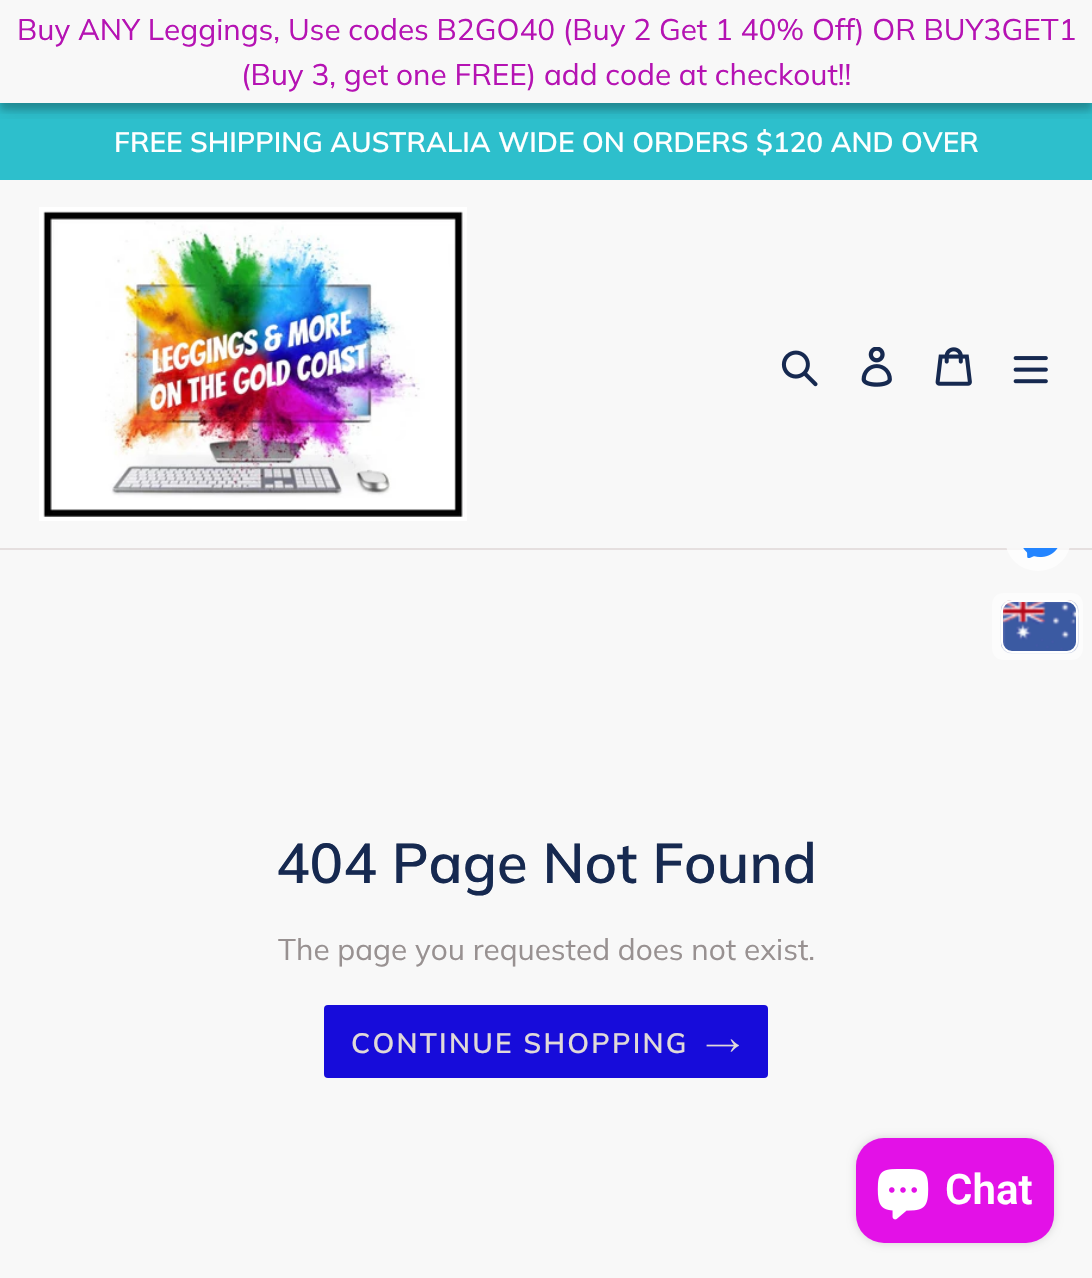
void draw(SkCanvas* canvas) {
	SkPaint fill;
	fill.setAntiAlias(true);
	auto makeFont = [&](const char* family, int weight, float size, bool italic = false) {
		SkFontStyle style(weight, SkFontStyle::kNormal_Width,
			italic ? SkFontStyle::kItalic_Slant : SkFontStyle::kUpright_Slant);
		SkFont result(fontMgr->matchFamilyStyle(family, style), size);
		result.setSubpixel(true);
		return result;
	};
	auto text = [&](const char* s, float x, float y, const SkFont& font) {
		canvas->drawString(s, x, y, font, fill);
	};
	auto spacedText = [&](const char* s, float x, float y, const SkFont& font, const SkPaint& ink, float letter, float word) {
		std::vector<SkGlyphID> glyphs(font.countText(s, strlen(s), SkTextEncoding::kUTF8));
		std::vector<float> xs(glyphs.size());
		font.textToGlyphs(s, strlen(s), SkTextEncoding::kUTF8, glyphs);
		font.getXPos(glyphs, xs, x);
		float extra = 0;
		for (size_t i = 0; i < glyphs.size(); i++) {
			xs[i] += extra;
			extra += letter + word * (glyphs[i] == font.unicharToGlyph(' '));
		}
		canvas->drawTextBlob(SkTextBlob::MakeFromPosHGlyphs(glyphs, xs, y, font), 0, 0, ink);
	};
	auto box = [&](float l, float t, float r, float b) {
		canvas->drawRect(SkRect::MakeLTRB(l, t, r, b), fill);
	};
	auto roundBox = [&](float l, float t, float r, float b, float radius) {
		canvas->drawRoundRect(SkRect::MakeLTRB(l, t, r, b), radius, radius, fill);
	};
	auto picture = [&](const char* path, float l, float t, float r, float b) {
		auto image = SkImages::DeferredFromEncodedData(SkData::MakeFromFileName(path));
		canvas->drawImageRect(image, SkRect::MakeLTRB(l, t, r, b), SkSamplingOptions());
	};
	canvas->clear(0xFFF8F8F8);
	fill.setColor(0xFF2DBFCC);
	box(0, 103, 1092, 180);
	canvas->save();
	canvas->clipRect(SkRect::MakeLTRB(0, 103, 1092, 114));
	fill.setColor(0x33000000);
	fill.setMaskFilter(SkMaskFilter::MakeBlur(kNormal_SkBlurStyle, 3.5f));
	canvas->drawRect(SkRect::MakeLTRB(0, 7, 1092, 110), fill);
	fill.setMaskFilter(nullptr);
	canvas->restore();
	canvas->save();
	canvas->clipRect(SkRect::MakeLTRB(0, 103, 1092, 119));
	fill.setColor(0x1F000000);
	fill.setMaskFilter(SkMaskFilter::MakeBlur(kNormal_SkBlurStyle, 9));
	canvas->drawRect(SkRect::MakeLTRB(2, 7, 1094, 110), fill);
	fill.setMaskFilter(nullptr);
	canvas->restore();
	fill.setColor(0xFFE5DFDF);
	box(0, 548, 1092, 550);
	fill.setColor(0xB3FFFFFF);
	roundBox(1005, 506, 1071, 571, 32.5f);
	fill.setColor(0xFFF8F8F8);
	box(1005, 506, 1071, 548);
	picture("image0.png", 39, 207, 467, 521);
	picture("image1.png", 781, 350, 818, 387);
	picture("image2.png", 861, 347, 892, 387);
	picture("image3.png", 935, 347, 972, 386);
	picture("image4.png", 1013, 356, 1048, 384);
	picture("image5.png", 1023, 548, 1058, 558);
	fill.setColor(0xFFFCFCFC);
	roundBox(992, 593, 1083, 660, 11);
	picture("image6.png", 1000, 600, 1079, 654);
	fill.setStyle(SkPaint::kStroke_Style);
	fill.setStrokeWidth(2);
	fill.setColor(0xFFFFFFFF);
	canvas->drawRoundRect(SkRect::MakeLTRB(1002, 601, 1077, 652), 10, 10, fill);
	fill.setStyle(SkPaint::kFill_Style);
	fill.setColor(0xFF170CDA);
	roundBox(324, 1005, 768, 1078, 4);
	picture("image7.png", 706, 1039, 739, 1052);
	fill.setColor(0x26000000);
	fill.setMaskFilter(SkMaskFilter::MakeBlur(kNormal_SkBlurStyle, 4.5f));
	canvas->drawRoundRect(SkRect::MakeLTRB(856, 1138, 1054, 1243), 28, 28, fill);
	fill.setMaskFilter(nullptr);
	fill.setColor(0xFFE311E7);
	roundBox(856, 1138, 1054, 1243, 28);
	picture("image8.png", 877, 1169, 929, 1220);
	auto font1 = makeFont("Muli", 400, 29.75f);
	fill.setColor(0xFFB513B3);
	text("Buy ANY Leggings, Use codes B2GO40 (Buy 2 Get 1 40% Off) OR BUY3GET1", 17, 40, font1);
	text("(Buy 3, get one FREE) add code at checkout!!", 241, 85, font1);
	auto font2 = makeFont("Muli", 600, 28);
	fill.setColor(0xFFFFFFFF);
	text("FREE SHIPPING AUSTRALIA WIDE ON ORDERS $120 AND OVER", 114, 152, font2);
	auto font3 = makeFont("Muli", 600, 56);
	fill.setColor(0xFF162950);
	text("404 Page Not Found", 276, 883, font3);
	fill.setColor(0xFF989191);
	text("The page you requested does not exist.", 278, 960, font1);
	fill.setColor(0xFFE0D9D9);
	spacedText("CONTINUE SHOPPING", 351, 1053, font2, fill, 2.25f, 0);
	auto font4 = makeFont("Roboto", 600, 42);
	fill.setColor(0xFFFFFFFF);
	text("Chat", 945, 1204, font4);
}
